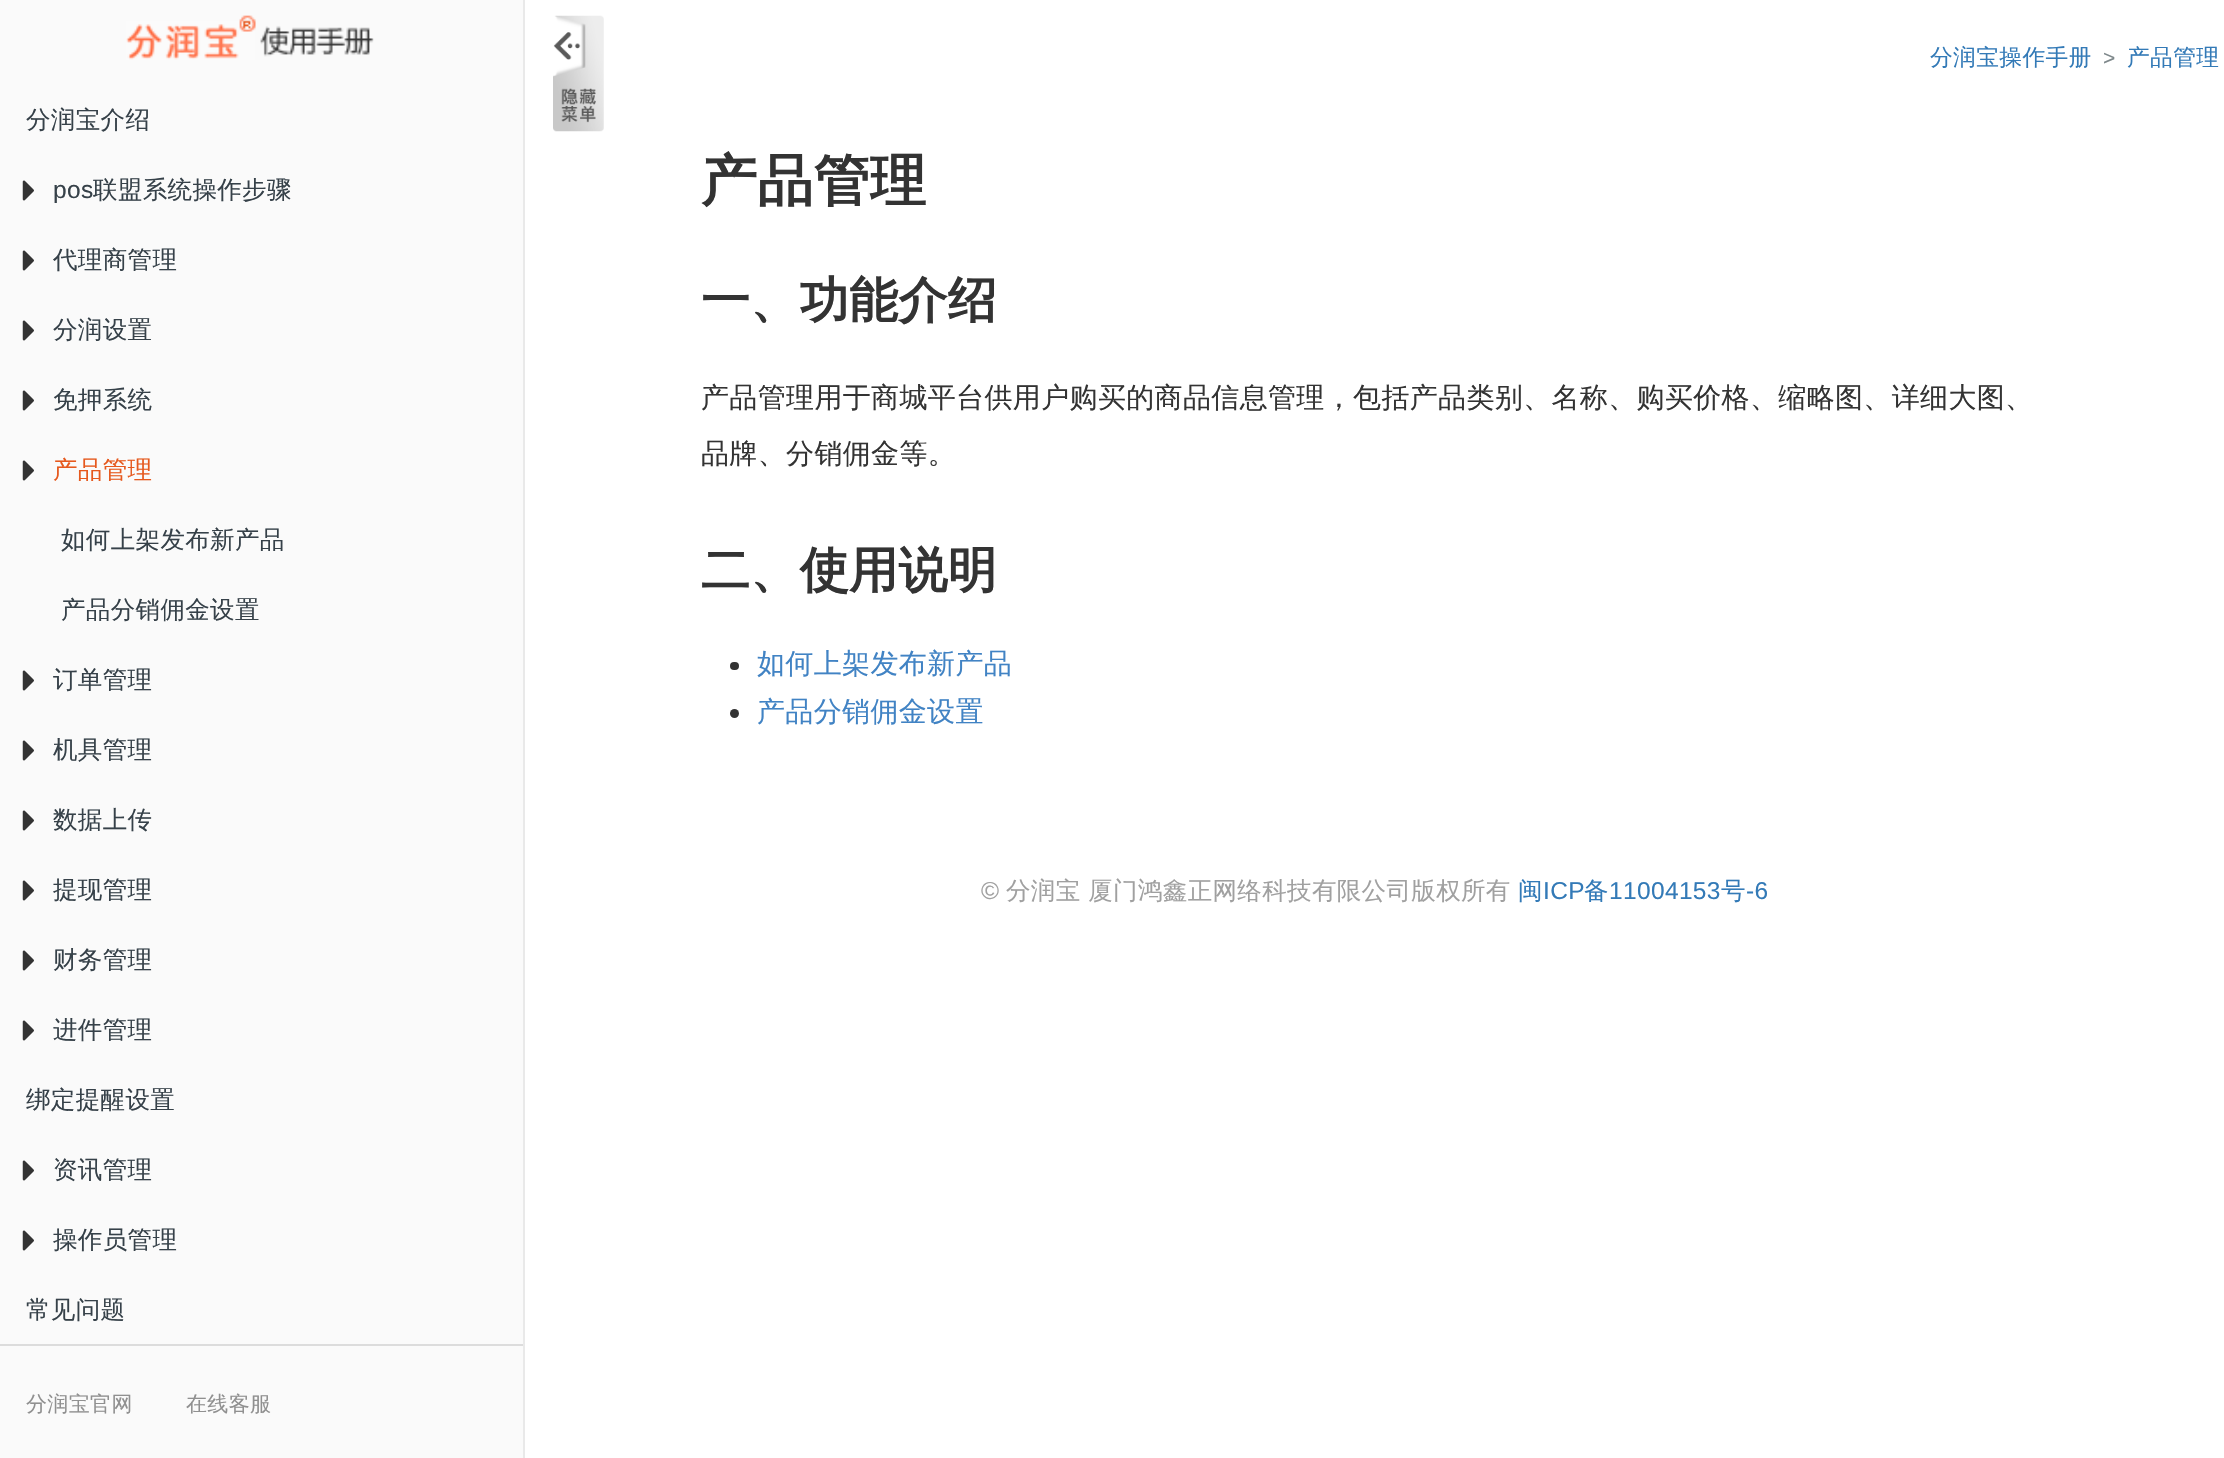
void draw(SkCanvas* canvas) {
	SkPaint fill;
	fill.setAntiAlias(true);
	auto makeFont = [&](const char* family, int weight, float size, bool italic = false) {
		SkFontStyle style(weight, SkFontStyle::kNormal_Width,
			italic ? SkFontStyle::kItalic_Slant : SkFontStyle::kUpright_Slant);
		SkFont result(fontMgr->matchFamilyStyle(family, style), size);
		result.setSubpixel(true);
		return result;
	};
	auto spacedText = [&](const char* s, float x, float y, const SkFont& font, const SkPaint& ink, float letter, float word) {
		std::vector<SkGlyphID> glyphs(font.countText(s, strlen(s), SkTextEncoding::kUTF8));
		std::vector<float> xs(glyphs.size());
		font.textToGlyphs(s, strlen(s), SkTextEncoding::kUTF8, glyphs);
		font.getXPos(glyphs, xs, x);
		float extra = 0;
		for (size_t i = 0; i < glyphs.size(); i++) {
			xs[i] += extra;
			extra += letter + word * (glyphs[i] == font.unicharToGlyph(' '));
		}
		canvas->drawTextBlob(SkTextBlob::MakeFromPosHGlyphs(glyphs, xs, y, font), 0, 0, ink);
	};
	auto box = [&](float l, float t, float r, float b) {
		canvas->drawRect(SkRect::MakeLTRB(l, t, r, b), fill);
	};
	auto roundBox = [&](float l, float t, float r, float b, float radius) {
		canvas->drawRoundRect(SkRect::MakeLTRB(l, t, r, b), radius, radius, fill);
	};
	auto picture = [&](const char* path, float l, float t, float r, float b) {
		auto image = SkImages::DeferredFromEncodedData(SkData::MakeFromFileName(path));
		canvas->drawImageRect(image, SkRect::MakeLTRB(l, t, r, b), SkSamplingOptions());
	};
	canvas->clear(0xFFFFFFFF);
	fill.setColor(0xFFFAFAFA);
	box(0, 0, 523, 1458);
	fill.setColor(0xFFE9E9E9);
	box(523, 0, 525, 1458);
	picture("image0.png", 126, 15, 374, 60);
	picture("image1.png", 22, 180, 34, 201);
	picture("image1.png", 22, 250, 34, 271);
	picture("image1.png", 22, 320, 34, 341);
	picture("image1.png", 22, 390, 34, 411);
	picture("image1.png", 22, 460, 34, 481);
	picture("image1.png", 22, 670, 34, 691);
	picture("image1.png", 22, 740, 34, 761);
	picture("image1.png", 22, 810, 34, 831);
	picture("image1.png", 22, 880, 34, 901);
	picture("image1.png", 22, 950, 34, 971);
	picture("image1.png", 22, 1020, 34, 1041);
	picture("image1.png", 22, 1160, 34, 1181);
	picture("image1.png", 22, 1230, 34, 1251);
	fill.setColor(0xFFDCDCDC);
	box(0, 1344, 523, 1346);
	picture("image2.png", 553, 15, 604, 132);
	fill.setColor(0xFF333333);
	roundBox(730, 662, 739, 670, 4);
	canvas->drawCircle(734.5f, 713.5f, 4.5f, fill);
	auto font1 = makeFont("WenQuanYi Zen Hei", 500, 24.5f);
	fill.setColor(0xFF364149);
	spacedText("分润宝介绍", 26, 128, font1, fill, 0.35f, 0);
	auto font2 = makeFont("Liberation Sans", 400, 24.5f);
	spacedText("pos", 53, 198, font2, fill, 0.35f, 0);
	spacedText("联盟系统操作步骤", 93, 198, font1, fill, 0.35f, 0);
	spacedText("代理商管理", 53, 268, font1, fill, 0.35f, 0);
	spacedText("分润设置", 53, 338, font1, fill, 0.35f, 0);
	spacedText("免押系统", 53, 408, font1, fill, 0.35f, 0);
	fill.setColor(0xFFE6591E);
	spacedText("产品管理", 53, 478, font1, fill, 0.35f, 0);
	fill.setColor(0xFF364149);
	spacedText("如何上架发布新产品", 61, 548, font1, fill, 0.35f, 0);
	spacedText("产品分销佣金设置", 61, 618, font1, fill, 0.35f, 0);
	spacedText("订单管理", 53, 688, font1, fill, 0.35f, 0);
	spacedText("机具管理", 53, 758, font1, fill, 0.35f, 0);
	spacedText("数据上传", 53, 828, font1, fill, 0.35f, 0);
	spacedText("提现管理", 53, 898, font1, fill, 0.35f, 0);
	spacedText("财务管理", 53, 968, font1, fill, 0.35f, 0);
	spacedText("进件管理", 53, 1038, font1, fill, 0.35f, 0);
	spacedText("绑定提醒设置", 26, 1108, font1, fill, 0.35f, 0);
	spacedText("资讯管理", 53, 1178, font1, fill, 0.35f, 0);
	spacedText("操作员管理", 53, 1248, font1, fill, 0.35f, 0);
	spacedText("常见问题", 26, 1318, font1, fill, 0.35f, 0);
	auto font3 = makeFont("WenQuanYi Zen Hei", 500, 21);
	fill.setColor(0xFF909090);
	spacedText("分润宝官网", 26, 1411, font3, fill, 0.35f, 0);
	spacedText("在线客服", 186, 1411, font3, fill, 0.35f, 0);
	auto font4 = makeFont("WenQuanYi Zen Hei", 500, 22.75f);
	fill.setColor(0xFF337AB7);
	spacedText("分润宝操作手册", 1930, 65, font4, fill, 0.35f, 0);
	auto font5 = makeFont("Liberation Sans", 400, 21);
	fill.setColor(0xFF7E888B);
	spacedText(">", 2103, 65, font5, fill, 0.35f, 0);
	fill.setColor(0xFF337AB7);
	spacedText("产品管理", 2127, 65, font4, fill, 0.35f, 0);
	auto font6 = makeFont("WenQuanYi Zen Hei", 700, 56);
	fill.setColor(0xFF333333);
	spacedText("产品管理", 701, 200, font6, fill, 0.35f, 0);
	auto font7 = makeFont("WenQuanYi Zen Hei", 700, 49);
	spacedText("一、功能介绍", 701, 317, font7, fill, 0.35f, 0);
	auto font8 = makeFont("WenQuanYi Zen Hei", 500, 28);
	spacedText("产品管理用于商城平台供用户购买的商品信息管理，包括产品类别、名称、购买价格、缩略图、详细大图、", 701, 407, font8, fill, 0.35f, 0);
	spacedText("品牌、分销佣金等。", 701, 463, font8, fill, 0.35f, 0);
	spacedText("二、使用说明", 701, 587, font7, fill, 0.35f, 0);
	fill.setColor(0xFF4183C4);
	spacedText("如何上架发布新产品", 757, 673, font8, fill, 0.35f, 0);
	spacedText("产品分销佣金设置", 757, 721, font8, fill, 0.35f, 0);
	fill.setColor(0xFFA0A0A0);
	spacedText("©", 981, 899, font2, fill, 0.35f, 0);
	spacedText("分润宝 厦门鸿鑫正网络科技有限公司版权所有", 1006, 899, font1, fill, 0.35f, 0);
	fill.setColor(0xFF337AB7);
	spacedText("闽", 1518, 899, font1, fill, 0.35f, 0);
	spacedText("ICP", 1543, 899, font2, fill, 0.35f, 0);
	spacedText("备", 1584, 899, font1, fill, 0.35f, 0);
	spacedText("11004153", 1609, 899, font2, fill, 0.35f, 0);
	spacedText("号", 1721, 899, font1, fill, 0.35f, 0);
	spacedText("-6", 1746, 899, font2, fill, 0.35f, 0);
}
